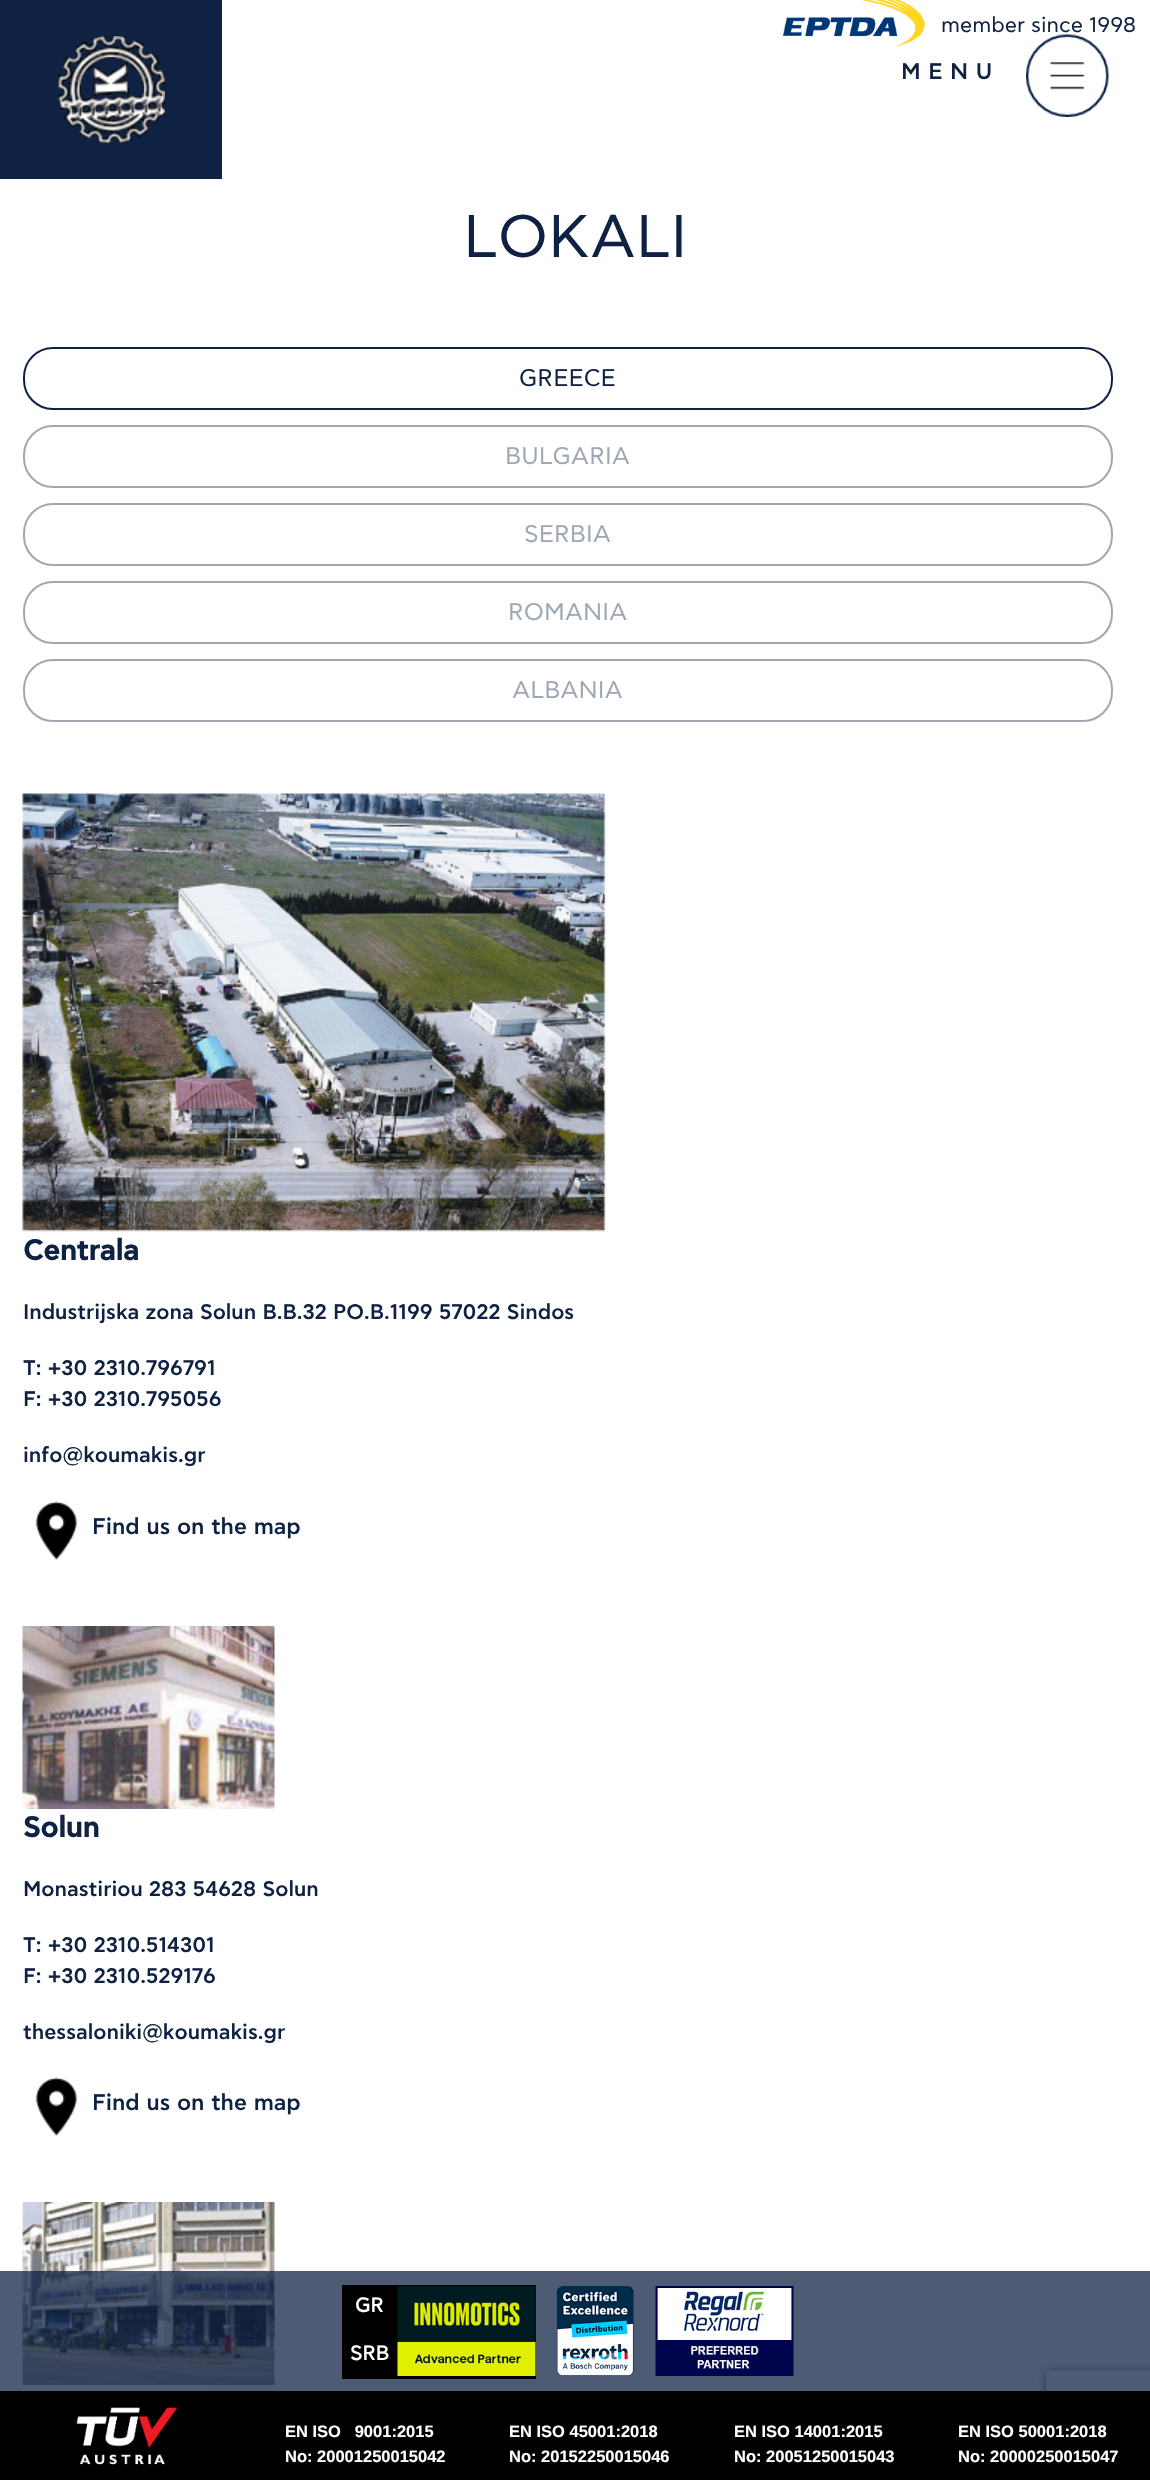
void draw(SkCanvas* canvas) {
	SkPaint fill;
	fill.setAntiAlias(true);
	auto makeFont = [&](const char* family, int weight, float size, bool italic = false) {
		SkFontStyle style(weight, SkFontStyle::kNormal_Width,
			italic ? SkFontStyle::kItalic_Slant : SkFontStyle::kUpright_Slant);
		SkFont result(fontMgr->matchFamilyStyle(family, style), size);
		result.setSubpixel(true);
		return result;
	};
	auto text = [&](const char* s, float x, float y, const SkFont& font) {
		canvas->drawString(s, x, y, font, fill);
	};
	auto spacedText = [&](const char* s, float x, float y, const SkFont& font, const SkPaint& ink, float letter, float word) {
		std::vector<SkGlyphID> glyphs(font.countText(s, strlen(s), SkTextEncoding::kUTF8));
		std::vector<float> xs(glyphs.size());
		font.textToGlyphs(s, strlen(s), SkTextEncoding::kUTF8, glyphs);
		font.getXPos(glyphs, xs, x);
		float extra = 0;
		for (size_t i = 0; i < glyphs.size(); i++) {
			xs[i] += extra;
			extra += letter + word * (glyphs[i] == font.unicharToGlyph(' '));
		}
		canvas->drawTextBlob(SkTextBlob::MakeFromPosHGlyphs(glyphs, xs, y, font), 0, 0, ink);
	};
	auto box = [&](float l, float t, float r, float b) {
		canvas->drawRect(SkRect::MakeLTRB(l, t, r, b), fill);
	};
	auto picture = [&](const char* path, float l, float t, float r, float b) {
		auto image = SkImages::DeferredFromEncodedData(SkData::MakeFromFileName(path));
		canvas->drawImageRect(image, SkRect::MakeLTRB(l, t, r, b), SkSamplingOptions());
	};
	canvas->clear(0xFFFFFFFF);
	picture("image1.png", 1026, 34, 1109, 117);
	fill.setColor(0x1AFFFFFF);
	box(1031, 53, 1103, 55);
	picture("image0.png", 783, 0, 925, 47);
	fill.setColor(0xFF0F2244);
	box(0, 0, 222, 179);
	picture("image2.png", 58, 36, 165, 143);
	fill.setStyle(SkPaint::kStroke_Style);
	fill.setStrokeWidth(2);
	canvas->drawRoundRect(SkRect::MakeLTRB(24, 348, 1112, 409), 29, 29, fill);
	fill.setColor(0xFF9FA7B4);
	canvas->drawRoundRect(SkRect::MakeLTRB(24, 426, 1112, 487), 29, 29, fill);
	canvas->drawRoundRect(SkRect::MakeLTRB(24, 504, 1112, 565), 29, 29, fill);
	canvas->drawRoundRect(SkRect::MakeLTRB(24, 582, 1112, 643), 29, 29, fill);
	canvas->drawRoundRect(SkRect::MakeLTRB(24, 660, 1112, 721), 29, 29, fill);
	picture("image3.png", 22, 793, 606, 1232);
	picture("image4.png", 35, 1501, 77, 1561);
	picture("image5.png", 22, 1626, 275, 1809);
	picture("image4.png", 35, 2077, 77, 2137);
	picture("image6.png", 22, 2202, 275, 2385);
	canvas->save();
	canvas->clipPath(SkPathBuilder(SkPathFillType::kEvenOdd).moveTo(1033, 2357).lineTo(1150, 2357).lineTo(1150, 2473).lineTo(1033, 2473).close().moveTo(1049, 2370).lineTo(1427, 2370).cubicTo(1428.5f, 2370, 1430, 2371.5f, 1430, 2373).lineTo(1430, 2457).cubicTo(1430, 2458.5f, 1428.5f, 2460, 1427, 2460).lineTo(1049, 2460).cubicTo(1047.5f, 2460, 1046, 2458.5f, 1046, 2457).lineTo(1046, 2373).cubicTo(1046, 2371.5f, 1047.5f, 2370, 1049, 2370).close().detach(), true);
	fill.setStyle(SkPaint::kFill_Style);
	fill.setColor(0xFF808080);
	fill.setMaskFilter(SkMaskFilter::MakeBlur(kNormal_SkBlurStyle, 4));
	canvas->drawRoundRect(SkRect::MakeLTRB(1046, 2370, 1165, 2460), 3, 3, fill);
	fill.setMaskFilter(nullptr);
	canvas->restore();
	fill.setColor(0xBD0F2244);
	box(0, 2271, 1150, 2391);
	fill.setColor(0xFF000000);
	box(342, 2285, 536, 2379);
	picture("image7.png", 397, 2286, 536, 2376);
	picture("image8.png", 556, 2286, 634, 2376);
	picture("image9.png", 655, 2286, 794, 2376);
	box(0, 2391, 1150, 2480);
	picture("image10.png", 76, 2407, 178, 2465);
	auto font1 = makeFont("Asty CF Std", 400, 21);
	fill.setColor(0xFF0F2244);
	text("member since 1998", 941, 32, font1);
	auto font2 = makeFont("Asty CF Std", 500, 22.5f);
	spacedText("MENU", 901, 79, font2, fill, 7.5f, 0);
	auto font3 = makeFont("Asty CF Std", 400, 60);
	text("LOKALI", 463, 257, font3);
	auto font4 = makeFont("Asty CF Std", 400, 24);
	text("GREECE", 519, 386, font4);
	fill.setColor(0xFF9FA7B4);
	text("BULGARIA", 505, 464, font4);
	text("SERBIA", 524, 542, font4);
	text("ROMANIA", 508, 620, font4);
	text("ALBANIA", 512, 698, font4);
	auto font5 = makeFont("Asty CF Std", 700, 28.5f);
	fill.setColor(0xFF0F2244);
	text("Centrala", 23, 1260, font5);
	auto font6 = makeFont("Asty CF Std", 500, 21);
	text("Industrijska zona Solun B.B.32 PO.B.1199 57022 Sindos", 23, 1319, font6);
	text("T: +30 2310.796791", 23, 1375, font6);
	text("F: +30 2310.795056", 23, 1406, font6);
	text("info@koumakis.gr", 23, 1462, font6);
	text("Find us on the map", 92, 1534, font2);
	text("Solun", 23, 1837, font5);
	text("Monastiriou 283 54628 Solun", 23, 1896, font6);
	text("T: +30 2310.514301", 23, 1952, font6);
	text("F: +30 2310.529176", 23, 1983, font6);
	text("thessaloniki@koumakis.gr", 23, 2039, font6);
	text("Find us on the map", 92, 2110, font2);
	auto font7 = makeFont("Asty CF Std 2", 700, 20);
	fill.setColor(0xFFFFFFFF);
	text("GR", 355, 2312, font7);
	text("SRΒ", 350, 2360, font7);
	auto font8 = makeFont("Liberation Sans", 700, 16.5f);
	text("EN ISO   9001:2015", 285, 2437, font8);
	text("No: 20001250015042", 285, 2462, font8);
	text("EN ISO 45001:2018", 509, 2437, font8);
	text("No: 20152250015046", 509, 2462, font8);
	text("EN ISO 14001:2015", 734, 2437, font8);
	text("No: 20051250015043", 734, 2462, font8);
	text("EN ISO 50001:2018", 958, 2437, font8);
	text("No: 20000250015047", 958, 2462, font8);
}
